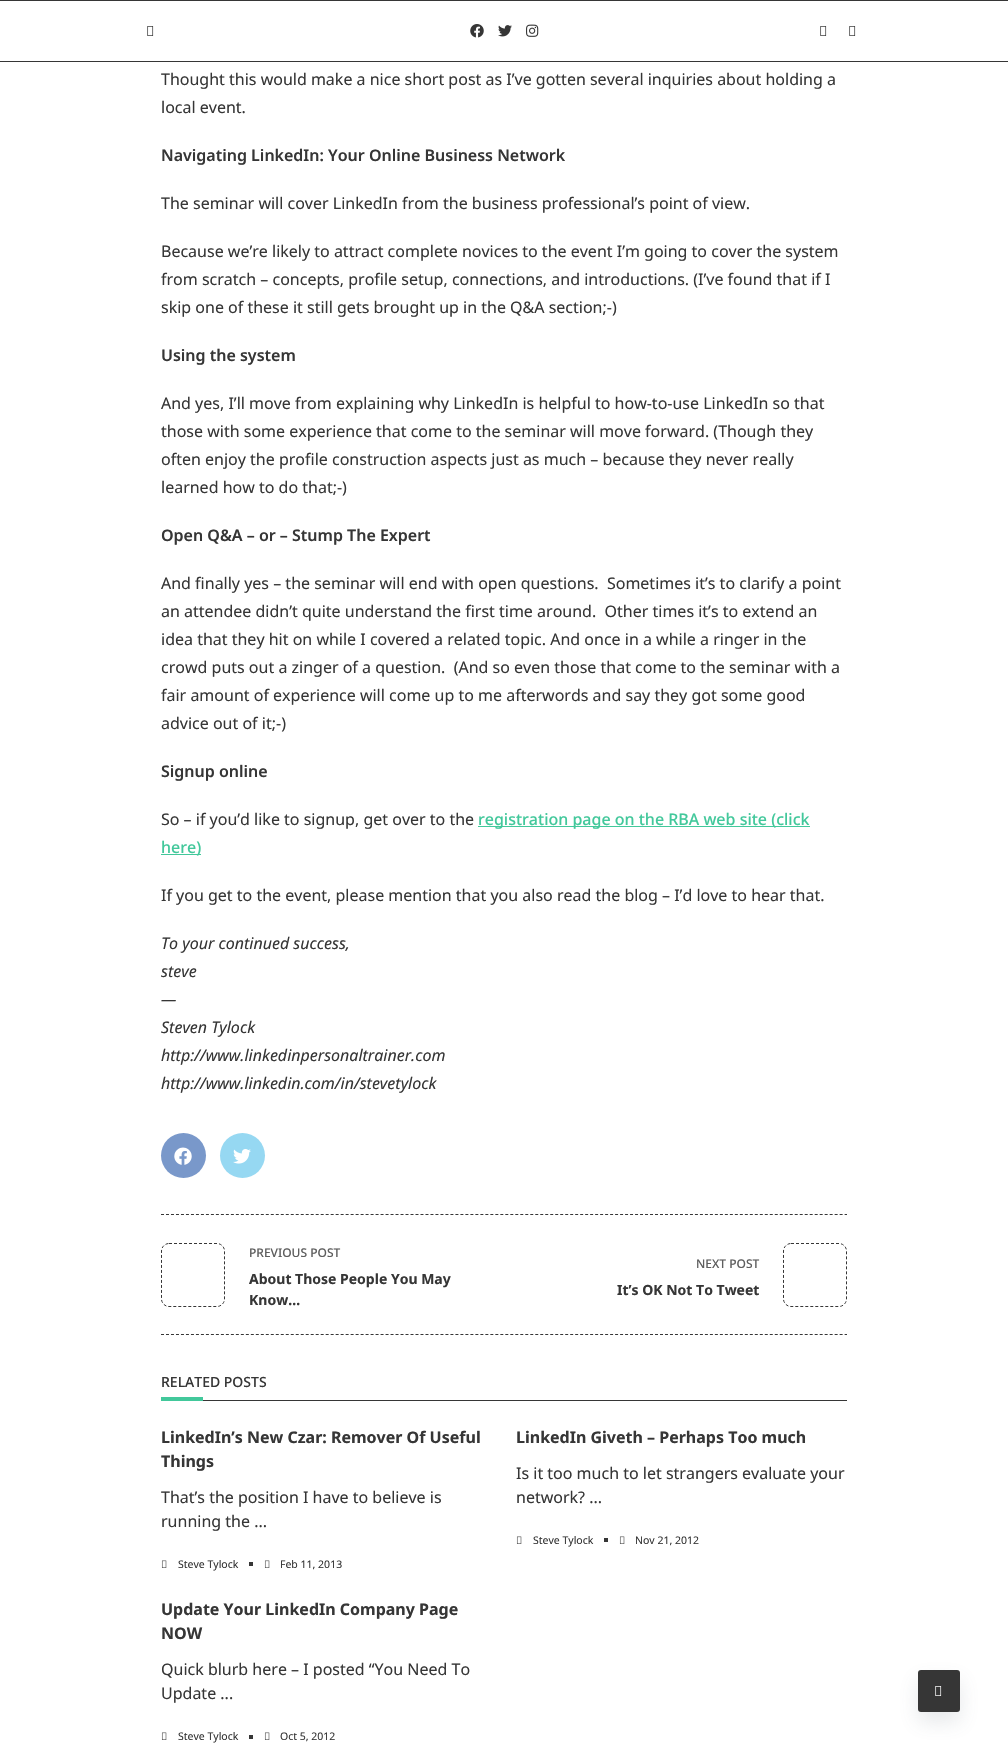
void draw(SkCanvas* canvas) {
	SkPaint fill;
	fill.setAntiAlias(true);
	auto makeFont = [&](const char* family, int weight, float size, bool italic = false) {
		SkFontStyle style(weight, SkFontStyle::kNormal_Width,
			italic ? SkFontStyle::kItalic_Slant : SkFontStyle::kUpright_Slant);
		SkFont result(fontMgr->matchFamilyStyle(family, style), size);
		result.setSubpixel(true);
		return result;
	};
	auto text = [&](const char* s, float x, float y, const SkFont& font) {
		canvas->drawString(s, x, y, font, fill);
	};
	auto box = [&](float l, float t, float r, float b) {
		canvas->drawRect(SkRect::MakeLTRB(l, t, r, b), fill);
	};
	auto roundBox = [&](float l, float t, float r, float b, float radius) {
		canvas->drawRoundRect(SkRect::MakeLTRB(l, t, r, b), radius, radius, fill);
	};
	auto picture = [&](const char* path, float l, float t, float r, float b) {
		auto image = SkImages::DeferredFromEncodedData(SkData::MakeFromFileName(path));
		canvas->drawImageRect(image, SkRect::MakeLTRB(l, t, r, b), SkSamplingOptions());
	};
	canvas->clear(0xFFFFFFFF);
	fill.setColor(0xFF363636);
	box(0, 0, 1008, 1);
	box(0, 61, 1008, 62);
	picture("image0.png", 147, 26, 154, 36);
	picture("image1.png", 470, 24, 484, 38);
	picture("image2.png", 498, 25, 512, 37);
	picture("image3.png", 526, 24, 539, 37);
	picture("image0.png", 820, 26, 827, 36);
	picture("image0.png", 849, 26, 856, 36);
	fill.setColor(0xFF42C89B);
	box(478, 826, 810, 827);
	box(161, 854, 201, 855);
	fill.setColor(0xFF7998CA);
	canvas->drawCircle(183.5f, 1155.5f, 22.5f, fill);
	picture("image4.png", 174, 1147, 192, 1165);
	fill.setColor(0xFF96D8F2);
	canvas->drawCircle(242.5f, 1155.5f, 22.5f, fill);
	picture("image5.png", 233, 1149, 251, 1164);
	fill.setStyle(SkPaint::kStroke_Style);
	fill.setStrokeWidth(1);
	fill.setColor(0xFF363636);
	fill.setPathEffect(SkDashPathEffect::Make({{3, 1.99f}}, 0));
	canvas->drawPath(SkPathBuilder().moveTo(161, 1214.5f).lineTo(847, 1214.5f).detach(), fill);
	fill.setPathEffect(nullptr);
	fill.setPathEffect(SkDashPathEffect::Make({{3, 1.99f}}, 0));
	canvas->drawPath(SkPathBuilder().moveTo(161, 1334.5f).lineTo(847, 1334.5f).detach(), fill);
	fill.setPathEffect(nullptr);
	fill.setPathEffect(SkDashPathEffect::Make({{3, 2}}, 0));
	canvas->drawPath(SkPathBuilder().moveTo(169, 1243.5f).lineTo(217, 1243.5f).cubicTo(221, 1243.5f, 224.5f, 1247, 224.5f, 1251).lineTo(224.5f, 1299).cubicTo(224.5f, 1303, 221, 1306.5f, 217, 1306.5f).lineTo(169, 1306.5f).cubicTo(165, 1306.5f, 161.5f, 1303, 161.5f, 1299).lineTo(161.5f, 1251).cubicTo(161.5f, 1247, 165, 1243.5f, 169, 1243.5f).close().detach(), fill);
	fill.setPathEffect(nullptr);
	fill.setPathEffect(SkDashPathEffect::Make({{3, 2}}, 0));
	canvas->drawPath(SkPathBuilder().moveTo(791, 1243.5f).lineTo(839, 1243.5f).cubicTo(843, 1243.5f, 846.5f, 1247, 846.5f, 1251).lineTo(846.5f, 1299).cubicTo(846.5f, 1303, 843, 1306.5f, 839, 1306.5f).lineTo(791, 1306.5f).cubicTo(787, 1306.5f, 783.5f, 1303, 783.5f, 1299).lineTo(783.5f, 1251).cubicTo(783.5f, 1247, 787, 1243.5f, 791, 1243.5f).close().detach(), fill);
	fill.setPathEffect(nullptr);
	fill.setStyle(SkPaint::kFill_Style);
	box(203, 1400, 847, 1401);
	fill.setColor(0xFF42C89B);
	box(161, 1397, 203, 1401);
	picture("image6.png", 161, 1560, 167, 1568);
	fill.setColor(0xFF363636);
	box(249, 1562, 253, 1566);
	picture("image6.png", 264, 1560, 270, 1568);
	picture("image6.png", 516, 1536, 522, 1544);
	box(604, 1538, 608, 1542);
	picture("image6.png", 619, 1536, 625, 1544);
	picture("image6.png", 161, 1732, 167, 1740);
	box(249, 1735, 253, 1739);
	picture("image6.png", 264, 1732, 270, 1740);
	fill.setColor(0x26586775);
	fill.setMaskFilter(SkMaskFilter::MakeBlur(kNormal_SkBlurStyle, 10));
	canvas->drawRoundRect(SkRect::MakeLTRB(918, 1680, 960, 1722), 3, 3, fill);
	fill.setMaskFilter(nullptr);
	fill.setColor(0xFF363636);
	roundBox(918, 1670, 960, 1712, 3);
	picture("image7.png", 935, 1686, 942, 1696);
	auto font1 = makeFont("Noto Sans", 400, 16);
	text("Thought this would make a nice short post as I’ve gotten several inquiries about holding a", 161, 85, font1);
	text("local event.", 161, 113, font1);
	auto font2 = makeFont("Noto Sans", 600, 16);
	text("Navigating LinkedIn: Your Online Business Network", 161, 161, font2);
	text("The seminar will cover LinkedIn from the business professional’s point of view.", 161, 209, font1);
	text("Because we’re likely to attract complete novices to the event I’m going to cover the system", 161, 257, font1);
	text("from scratch – concepts, profile setup, connections, and introductions. (I’ve found that if I", 161, 285, font1);
	text("skip one of these it still gets brought up in the Q&A section;-)", 161, 313, font1);
	text("Using the system", 161, 361, font2);
	text("And yes, I’ll move from explaining why LinkedIn is helpful to how-to-use LinkedIn so that", 161, 409, font1);
	text("those with some experience that come to the seminar will move forward. (Though they", 161, 437, font1);
	text("often enjoy the profile construction aspects just as much – because they never really", 161, 465, font1);
	text("learned how to do that;-)", 161, 493, font1);
	text("Open Q&A – or – Stump The Expert", 161, 541, font2);
	text("And finally yes – the seminar will end with open questions.  Sometimes it’s to clarify a point", 161, 589, font1);
	text("an attendee didn’t quite understand the first time around.  Other times it’s to extend an", 161, 617, font1);
	text("idea that they hit on while I covered a related topic. And once in a while a ringer in the", 161, 645, font1);
	text("crowd puts out a zinger of a question.  (And so even those that come to the seminar with a", 161, 673, font1);
	text("fair amount of experience will come up to me afterwords and say they got some good", 161, 701, font1);
	text("advice out of it;-)", 161, 729, font1);
	text("Signup online", 161, 777, font2);
	text("So – if you’d like to signup, get over to the", 161, 825, font1);
	auto font3 = makeFont("Noto Sans", 500, 16);
	fill.setColor(0xFF42C89B);
	text("registration page on the RBA web site (click", 478, 825, font3);
	text("here)", 161, 853, font3);
	fill.setColor(0xFF363636);
	text("If you get to the event, please mention that you also read the blog – I’d love to hear that.", 161, 901, font1);
	auto font4 = makeFont("Noto Sans", 400, 16, true);
	text("To your continued success,", 161, 949, font4);
	text("steve", 161, 977, font4);
	text("—", 161, 1005, font4);
	text("Steven Tylock", 161, 1033, font4);
	text("http://www.linkedinpersonaltrainer.com", 161, 1061, font4);
	text("http://www.linkedin.com/in/stevetylock", 161, 1089, font4);
	auto font5 = makeFont("Noto Sans", 500, 12);
	fill.setColor(0xFF5E5E5E);
	text("PREVIOUS POST", 249, 1257, font5);
	auto font6 = makeFont("Noto Sans", 700, 14);
	fill.setColor(0xFF363636);
	text("About Those People You May", 249, 1284, font6);
	text("Know…", 249, 1305, font6);
	fill.setColor(0xFF5E5E5E);
	text("NEXT POST", 696, 1268, font5);
	fill.setColor(0xFF363636);
	text("It’s OK Not To Tweet", 617, 1295, font6);
	auto font7 = makeFont("Noto Sans", 500, 14);
	text("RELATED POSTS", 161, 1387, font7);
	auto font8 = makeFont("Noto Sans", 700, 16);
	text("LinkedIn’s New Czar: Remover Of Useful", 161, 1443, font8);
	text("Things", 161, 1467, font8);
	text("That’s the position I have to believe is", 161, 1503, font1);
	text("running the ...", 161, 1527, font1);
	auto font9 = makeFont("Noto Sans", 400, 10.5f);
	text("Steve Tylock", 178, 1568, font9);
	text("Feb 11, 2013", 280, 1568, font9);
	text("LinkedIn Giveth – Perhaps Too much", 516, 1443, font8);
	text("Is it too much to let strangers evaluate your", 516, 1479, font1);
	text("network? ...", 516, 1503, font1);
	text("Steve Tylock", 533, 1544, font9);
	text("Nov 21, 2012", 635, 1544, font9);
	text("Update Your LinkedIn Company Page", 161, 1615, font8);
	text("NOW", 161, 1639, font8);
	text("Quick blurb here – I posted “You Need To", 161, 1675, font1);
	text("Update ...", 161, 1699, font1);
	text("Steve Tylock", 178, 1740, font9);
	text("Oct 5, 2012", 280, 1740, font9);
}
